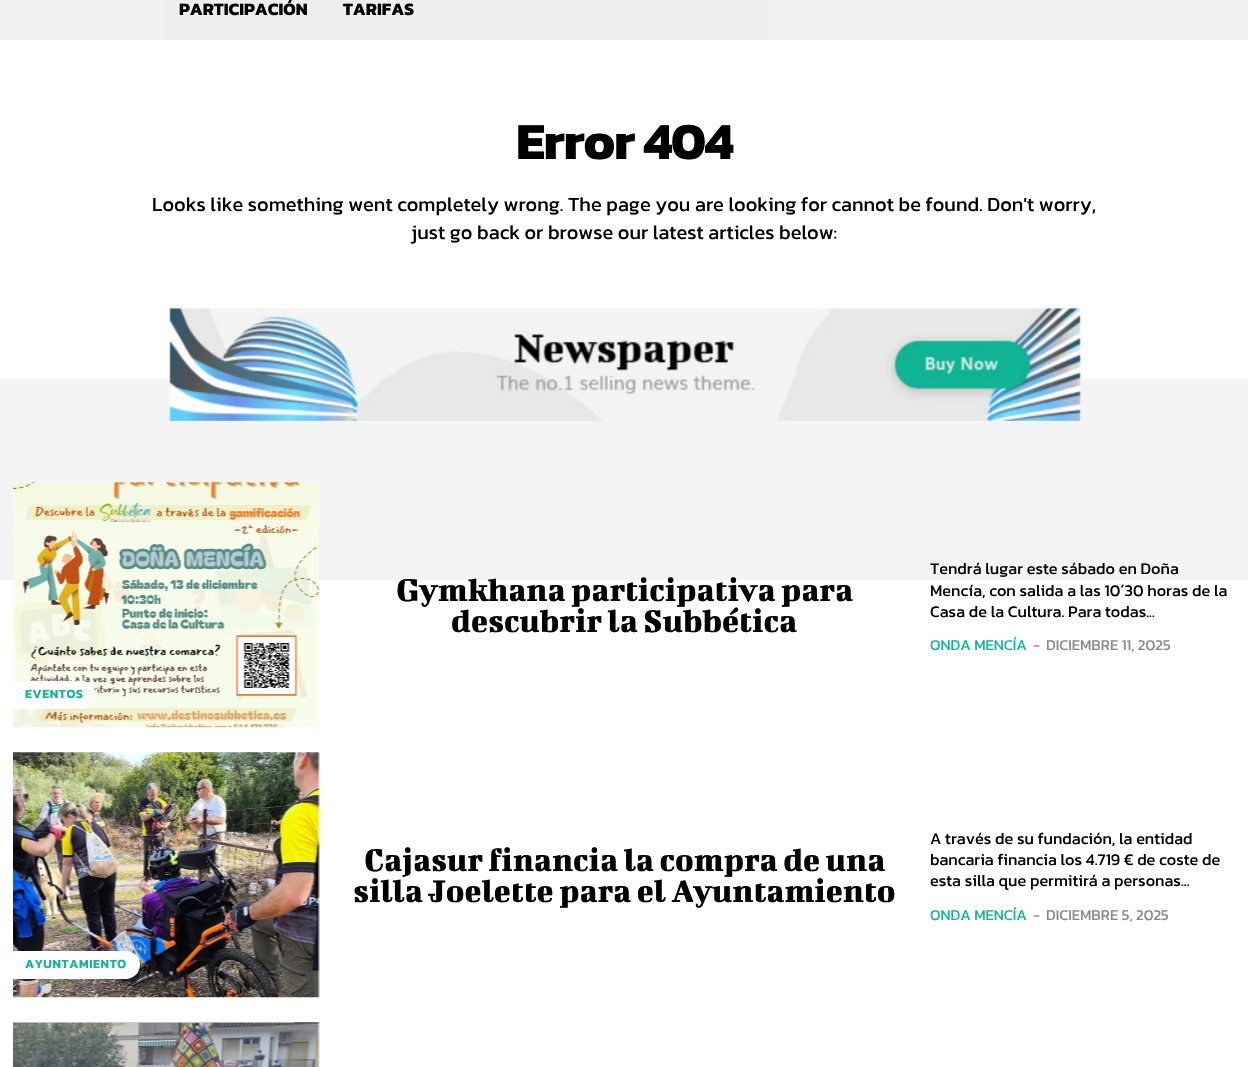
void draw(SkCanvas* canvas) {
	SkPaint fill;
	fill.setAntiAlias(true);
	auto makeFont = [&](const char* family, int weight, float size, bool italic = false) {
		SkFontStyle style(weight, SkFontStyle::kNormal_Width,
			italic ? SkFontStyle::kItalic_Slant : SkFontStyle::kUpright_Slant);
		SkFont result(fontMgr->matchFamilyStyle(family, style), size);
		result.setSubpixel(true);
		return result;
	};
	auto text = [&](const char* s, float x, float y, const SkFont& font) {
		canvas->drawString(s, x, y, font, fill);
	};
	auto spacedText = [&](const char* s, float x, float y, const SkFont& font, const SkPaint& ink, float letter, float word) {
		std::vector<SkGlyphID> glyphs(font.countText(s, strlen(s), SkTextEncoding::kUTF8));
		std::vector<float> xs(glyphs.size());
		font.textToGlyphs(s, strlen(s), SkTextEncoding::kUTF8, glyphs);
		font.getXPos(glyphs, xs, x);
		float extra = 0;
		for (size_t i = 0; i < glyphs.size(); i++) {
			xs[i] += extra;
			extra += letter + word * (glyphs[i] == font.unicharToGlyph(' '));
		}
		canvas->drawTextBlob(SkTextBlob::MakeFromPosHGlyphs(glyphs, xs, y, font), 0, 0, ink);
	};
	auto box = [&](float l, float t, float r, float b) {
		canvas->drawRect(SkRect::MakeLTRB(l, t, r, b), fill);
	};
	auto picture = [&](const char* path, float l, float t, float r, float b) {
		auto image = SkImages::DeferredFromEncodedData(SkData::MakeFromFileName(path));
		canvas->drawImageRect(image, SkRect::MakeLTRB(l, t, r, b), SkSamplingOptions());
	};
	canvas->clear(0xFFFFFFFF);
	fill.setColor(0xFFF1F1F1);
	box(0, 0, 1248, 40);
	fill.setColor(0xFFEEEEEE);
	box(163, 0, 768, 40);
	fill.setColor(0xFFF4F4F4);
	box(0, 379, 1248, 580);
	picture("image0.png", 169, 308, 1081, 421);
	picture("image1.png", 13, 482, 320, 728);
	fill.setColor(0xFFFFFFFF);
	canvas->drawPath(SkPathBuilder().moveTo(13, 681).lineTo(82, 681).cubicTo(89.5f, 681, 96, 687.5f, 96, 695).cubicTo(96, 702.5f, 89.5f, 709, 82, 709).lineTo(13, 709).close().detach(), fill);
	picture("image2.png", 13, 752, 320, 998);
	canvas->drawPath(SkPathBuilder().moveTo(13, 951).lineTo(126, 951).cubicTo(133.5f, 951, 140, 957.5f, 140, 965).cubicTo(140, 972.5f, 133.5f, 979, 126, 979).lineTo(13, 979).close().detach(), fill);
	picture("image3.png", 13, 1022, 320, 1067);
	auto font1 = makeFont("Kanit", 700, 17.5f);
	fill.setColor(0xFF000000);
	text("PARTICIPACIÓN", 179, 15, font1);
	text("TARIFAS", 343, 15, font1);
	auto font2 = makeFont("Kanit", 700, 52.5f);
	spacedText("Error 404", 516, 159, font2, fill, -1.25f, 0);
	auto font3 = makeFont("Kanit", 400, 20);
	text("Looks like something went completely wrong. The page you are looking for cannot be found. Don't worry,", 152, 211, font3);
	text("just go back or browse our latest articles below:", 411, 239, font3);
	auto font4 = makeFont("Bigshot One", 400, 35);
	text("Gymkhana participativa para", 396, 601, font4);
	text("descubrir la Subbética", 451, 632, font4);
	auto font5 = makeFont("Kanit", 400, 16.25f);
	text("Tendrá lugar este sábado en Doña", 930, 574, font5);
	text("Mencía, con salida a las 10´30 horas de la", 930, 596, font5);
	text("Casa de la Cultura. Para todas...", 930, 617, font5);
	auto font6 = makeFont("Kanit", 400, 15);
	fill.setColor(0xFF11B494);
	text("ONDA MENCÍA", 930, 650, font6);
	fill.setColor(0xFF888888);
	text("-", 1033, 650, font6);
	text("DICIEMBRE 11, 2025", 1046, 650, font6);
	auto font7 = makeFont("Kanit", 600, 12.5f);
	fill.setColor(0xFF11B494);
	spacedText("EVENTOS", 25, 698, font7, fill, 0.6f, 0);
	fill.setColor(0xFF000000);
	text("Cajasur financia la compra de una", 364, 871, font4);
	text("silla Joelette para el Ayuntamiento", 353, 902, font4);
	text("A través de su fundación, la entidad", 930, 844, font5);
	text("bancaria financia los 4.719 € de coste de", 930, 865, font5);
	text("esta silla que permitirá a personas...", 930, 886, font5);
	fill.setColor(0xFF11B494);
	text("ONDA MENCÍA", 930, 920, font6);
	fill.setColor(0xFF888888);
	text("-", 1033, 920, font6);
	text("DICIEMBRE 5, 2025", 1046, 920, font6);
	fill.setColor(0xFF11B494);
	spacedText("AYUNTAMIENTO", 25, 968, font7, fill, 0.6f, 0);
}
